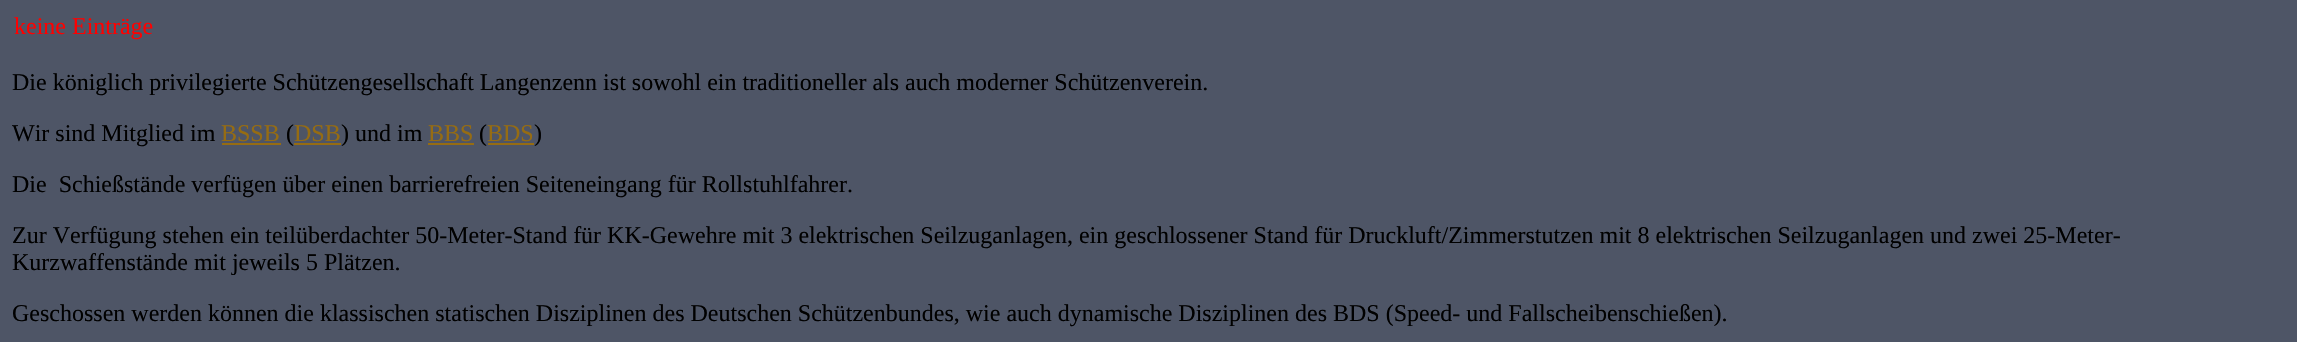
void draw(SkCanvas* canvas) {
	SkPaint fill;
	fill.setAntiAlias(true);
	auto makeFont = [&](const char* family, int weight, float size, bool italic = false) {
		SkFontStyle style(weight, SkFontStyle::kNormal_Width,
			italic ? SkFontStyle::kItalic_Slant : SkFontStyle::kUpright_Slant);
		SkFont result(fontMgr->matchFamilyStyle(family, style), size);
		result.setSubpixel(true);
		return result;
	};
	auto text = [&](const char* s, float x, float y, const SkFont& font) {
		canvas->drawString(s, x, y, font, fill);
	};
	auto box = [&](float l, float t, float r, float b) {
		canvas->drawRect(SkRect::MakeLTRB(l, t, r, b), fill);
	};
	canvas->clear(0xFF4E5566);
	fill.setColor(0xFF966C12);
	box(222, 143, 281, 145);
	box(294, 143, 341, 145);
	box(428, 143, 474, 145);
	box(488, 143, 534, 145);
	auto font1 = makeFont("Liberation Serif", 400, 24);
	fill.setColor(0xFFFF0000);
	text("keine Einträge", 14, 34, font1);
	fill.setColor(0xFF000000);
	text("Die königlich privilegierte Schützengesellschaft Langenzenn ist sowohl ein traditioneller als auch moderner Schützenverein.", 12, 90, font1);
	text("Wir sind Mitglied im", 12, 141, font1);
	fill.setColor(0xFF966C12);
	text("BSSB", 221, 141, font1);
	fill.setColor(0xFF000000);
	text("(", 286, 141, font1);
	fill.setColor(0xFF966C12);
	text("DSB", 294, 141, font1);
	fill.setColor(0xFF000000);
	text(") und im", 341, 141, font1);
	fill.setColor(0xFF966C12);
	text("BBS", 428, 141, font1);
	fill.setColor(0xFF000000);
	text("(", 479, 141, font1);
	fill.setColor(0xFF966C12);
	text("BDS", 487, 141, font1);
	fill.setColor(0xFF000000);
	text(")", 534, 141, font1);
	text("Die  Schießstände verfügen über einen barrierefreien Seiteneingang für Rollstuhlfahrer.", 12, 192, font1);
	text("Zur Verfügung stehen ein teilüberdachter 50-Meter-Stand für KK-Gewehre mit 3 elektrischen Seilzuganlagen, ein geschlossener Stand für Druckluft/Zimmerstutzen mit 8 elektrischen Seilzuganlagen und zwei 25-Meter-", 12, 243, font1);
	text("Kurzwaffenstände mit jeweils 5 Plätzen.", 12, 270, font1);
	text("Geschossen werden können die klassischen statischen Disziplinen des Deutschen Schützenbundes, wie auch dynamische Disziplinen des BDS (Speed- und Fallscheibenschießen).", 12, 321, font1);
}
